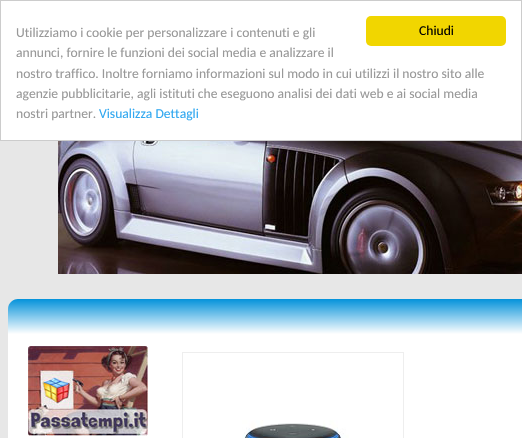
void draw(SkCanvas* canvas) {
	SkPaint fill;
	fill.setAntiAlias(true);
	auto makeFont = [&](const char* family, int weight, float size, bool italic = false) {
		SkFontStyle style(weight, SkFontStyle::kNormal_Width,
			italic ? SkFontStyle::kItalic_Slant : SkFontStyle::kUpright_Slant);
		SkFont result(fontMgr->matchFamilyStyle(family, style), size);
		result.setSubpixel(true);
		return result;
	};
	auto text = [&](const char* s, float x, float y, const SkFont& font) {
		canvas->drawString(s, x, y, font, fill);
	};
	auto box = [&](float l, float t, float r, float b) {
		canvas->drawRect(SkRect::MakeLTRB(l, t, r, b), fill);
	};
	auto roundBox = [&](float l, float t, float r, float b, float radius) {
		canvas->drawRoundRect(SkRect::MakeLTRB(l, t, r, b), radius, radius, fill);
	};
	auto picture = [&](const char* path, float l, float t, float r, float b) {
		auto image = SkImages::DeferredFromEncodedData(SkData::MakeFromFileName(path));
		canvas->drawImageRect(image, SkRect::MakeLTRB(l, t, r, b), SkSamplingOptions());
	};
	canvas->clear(0xFFE7E7E7);
	fill.setColor(0xFFFFFFFF);
	canvas->drawRect(SkRect::MakeLTRB(0.5f, 0.5f, 521.5f, 140.5f), fill);
	fill.setStyle(SkPaint::kStroke_Style);
	fill.setStrokeWidth(1);
	fill.setColor(0xFFCCCCCC);
	canvas->drawRect(SkRect::MakeLTRB(0.5f, 0.5f, 521.5f, 140.5f), fill);
	fill.setStyle(SkPaint::kFill_Style);
	fill.setColor(0xFFF1D600);
	roundBox(366, 16, 506, 46, 5);
	picture("image0.png", 58, 141, 522, 274);
	{
		const SkColor colors[] = {0xFF0492DA, 0xFFFFFFFF};
		const float stops[] = {0, 1};
		const SkPoint ends[] = {{463, 299}, {463, 334}};
		fill.setShader(SkGradientShader::MakeLinear(ends, colors, stops, 2, SkTileMode::kClamp));
		fill.setAlpha(255);
	}
	canvas->drawPath(SkPathBuilder().moveTo(18, 299).lineTo(522, 299).cubicTo(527.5f, 299, 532, 303.5f, 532, 309).lineTo(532, 334).lineTo(8, 334).lineTo(8, 309).cubicTo(8, 303.5f, 12.5f, 299, 18, 299).close().detach(), fill);
	fill.setShader(nullptr);
	fill.setColor(0xFFFFFFFF);
	box(8, 334, 522, 438);
	picture("image1.png", 28, 346, 148, 436);
	fill.setStyle(SkPaint::kStroke_Style);
	fill.setColor(0xFFEEEEEE);
	canvas->drawRect(SkRect::MakeLTRB(182.5f, 352.5f, 403.5f, 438.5f), fill);
	picture("image2.png", 242, 420, 349, 438);
	auto font1 = makeFont("Carlito", 400, 13.6f);
	fill.setStyle(SkPaint::kFill_Style);
	fill.setColor(0xFF000000);
	text("Chiudi", 419, 35, font1);
	fill.setColor(0xFF999999);
	text("Utilizziamo i cookie per personalizzare i contenuti e gli", 16, 37, font1);
	text("annunci, fornire le funzioni dei social media e analizzare il", 16, 57, font1);
	text("nostro traffico. Inoltre forniamo informazioni sul modo in cui utilizzi il nostro sito alle", 16, 78, font1);
	text("agenzie pubblicitarie, agli istituti che eseguono analisi dei dati web e ai social media", 16, 98, font1);
	text("nostri partner.", 16, 118, font1);
	fill.setColor(0xFF31A8F0);
	text("Visualizza Dettagli", 99, 118, font1);
}
